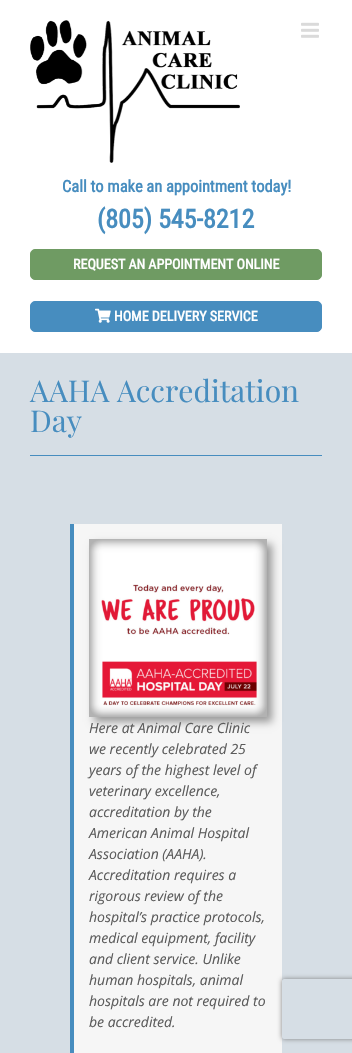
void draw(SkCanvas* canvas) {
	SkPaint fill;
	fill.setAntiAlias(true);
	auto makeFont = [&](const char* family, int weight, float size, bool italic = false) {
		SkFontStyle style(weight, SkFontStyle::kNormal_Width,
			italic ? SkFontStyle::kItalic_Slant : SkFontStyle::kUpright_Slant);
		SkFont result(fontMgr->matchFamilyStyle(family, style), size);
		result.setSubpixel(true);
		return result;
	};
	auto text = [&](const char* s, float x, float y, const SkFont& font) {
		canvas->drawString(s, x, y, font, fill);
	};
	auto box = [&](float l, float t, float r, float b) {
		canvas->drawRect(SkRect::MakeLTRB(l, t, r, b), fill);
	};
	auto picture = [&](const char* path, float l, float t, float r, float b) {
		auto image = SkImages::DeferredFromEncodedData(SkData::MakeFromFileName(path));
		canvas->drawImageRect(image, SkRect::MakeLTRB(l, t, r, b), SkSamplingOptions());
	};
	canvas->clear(0xFFD6DEE5);
	fill.setColor(0xFFFFFFFF);
	box(0, 0, 352, 353);
	picture("image0.png", 301, 22, 319, 38);
	picture("image1.png", 30, 20, 240, 163);
	fill.setColor(0xFF6F9B63);
	canvas->drawRoundRect(SkRect::MakeLTRB(30.5f, 249.5f, 321.5f, 279.5f), 4.5f, 4.5f, fill);
	fill.setStyle(SkPaint::kStroke_Style);
	fill.setStrokeWidth(1);
	canvas->drawRoundRect(SkRect::MakeLTRB(30.5f, 249.5f, 321.5f, 279.5f), 4.5f, 4.5f, fill);
	fill.setStyle(SkPaint::kFill_Style);
	fill.setColor(0xFF478DBF);
	canvas->drawRoundRect(SkRect::MakeLTRB(30.5f, 301.5f, 321.5f, 331.5f), 4.5f, 4.5f, fill);
	fill.setStyle(SkPaint::kStroke_Style);
	canvas->drawRoundRect(SkRect::MakeLTRB(30.5f, 301.5f, 321.5f, 331.5f), 4.5f, 4.5f, fill);
	picture("image2.png", 95, 308, 111, 323);
	fill.setStyle(SkPaint::kFill_Style);
	box(30, 455, 322, 456);
	fill.setColor(0xFFF6F6F6);
	box(74, 524, 282, 1053);
	fill.setColor(0xFF478DBF);
	box(70, 524, 74, 1053);
	fill.setColor(0xFF999999);
	fill.setMaskFilter(SkMaskFilter::MakeBlur(kNormal_SkBlurStyle, 4));
	canvas->drawRect(SkRect::MakeLTRB(94, 544, 272, 722), fill);
	fill.setMaskFilter(nullptr);
	picture("image3.png", 89, 539, 267, 717);
	canvas->save();
	canvas->clipPath(SkPathBuilder(SkPathFillType::kEvenOdd).moveTo(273, 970).lineTo(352, 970).lineTo(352, 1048).lineTo(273, 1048).close().moveTo(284, 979).lineTo(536, 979).cubicTo(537, 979, 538, 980, 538, 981).lineTo(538, 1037).cubicTo(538, 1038, 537, 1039, 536, 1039).lineTo(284, 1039).cubicTo(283, 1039, 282, 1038, 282, 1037).lineTo(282, 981).cubicTo(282, 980, 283, 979, 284, 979).close().detach(), true);
	fill.setColor(0xFF808080);
	fill.setMaskFilter(SkMaskFilter::MakeBlur(kNormal_SkBlurStyle, 2.5f));
	canvas->drawRoundRect(SkRect::MakeLTRB(282, 979, 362, 1039), 2, 2, fill);
	fill.setMaskFilter(nullptr);
	canvas->restore();
	auto font1 = makeFont("Roboto Condensed", 700, 16.4f);
	fill.setColor(0xFF478DBF);
	text("Call to make an appointment today!", 62, 192, font1);
	auto font2 = makeFont("Roboto Condensed", 700, 26);
	text("(805) 545-8212", 97, 228, font2);
	auto font3 = makeFont("Roboto Condensed", 700, 14);
	fill.setColor(0xFFFFFFFF);
	text("REQUEST AN APPOINTMENT ONLINE", 73, 269, font3);
	text("HOME DELIVERY SERVICE", 114, 321, font3);
	auto font4 = makeFont("Playfair Display", 400, 30);
	fill.setColor(0xFF478DBF);
	text("AAHA Accreditation", 30, 402, font4);
	text("Day", 30, 432, font4);
	auto font5 = makeFont("Open Sans", 400, 14, true);
	fill.setColor(0xFF5B5B5B);
	text("Here at Animal Care Clinic", 89, 733, font5);
	text("we recently celebrated 25", 89, 754, font5);
	text("years of the highest level of", 89, 775, font5);
	text("veterinary excellence,", 89, 796, font5);
	text("accreditation by the", 89, 817, font5);
	text("American Animal Hospital", 89, 838, font5);
	text("Association (AAHA).", 89, 859, font5);
	text("Accreditation requires a", 89, 880, font5);
	text("rigorous review of the", 89, 901, font5);
	text("hospital’s practice protocols,", 89, 922, font5);
	text("medical equipment, facility", 89, 943, font5);
	text("and client service. Unlike", 89, 964, font5);
	text("human hospitals, animal", 89, 985, font5);
	text("hospitals are not required to", 89, 1006, font5);
	text("be accredited.", 89, 1027, font5);
}
